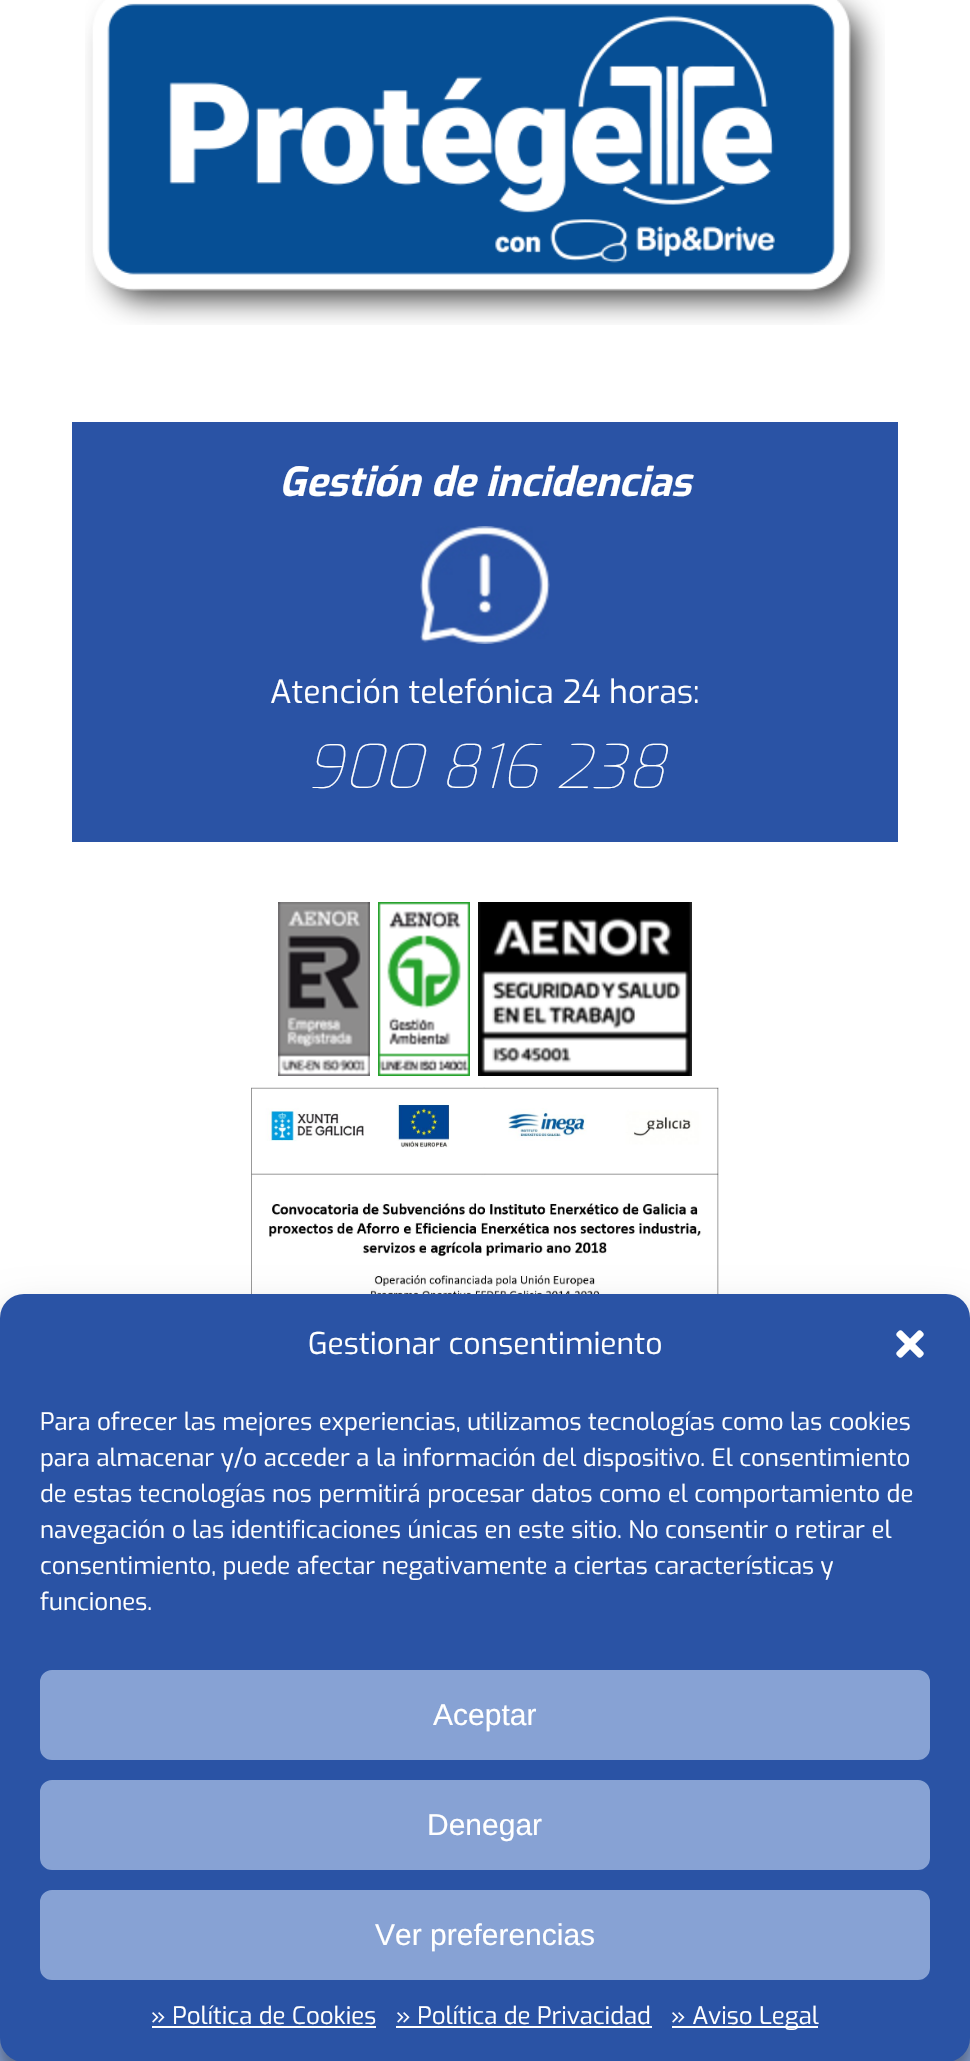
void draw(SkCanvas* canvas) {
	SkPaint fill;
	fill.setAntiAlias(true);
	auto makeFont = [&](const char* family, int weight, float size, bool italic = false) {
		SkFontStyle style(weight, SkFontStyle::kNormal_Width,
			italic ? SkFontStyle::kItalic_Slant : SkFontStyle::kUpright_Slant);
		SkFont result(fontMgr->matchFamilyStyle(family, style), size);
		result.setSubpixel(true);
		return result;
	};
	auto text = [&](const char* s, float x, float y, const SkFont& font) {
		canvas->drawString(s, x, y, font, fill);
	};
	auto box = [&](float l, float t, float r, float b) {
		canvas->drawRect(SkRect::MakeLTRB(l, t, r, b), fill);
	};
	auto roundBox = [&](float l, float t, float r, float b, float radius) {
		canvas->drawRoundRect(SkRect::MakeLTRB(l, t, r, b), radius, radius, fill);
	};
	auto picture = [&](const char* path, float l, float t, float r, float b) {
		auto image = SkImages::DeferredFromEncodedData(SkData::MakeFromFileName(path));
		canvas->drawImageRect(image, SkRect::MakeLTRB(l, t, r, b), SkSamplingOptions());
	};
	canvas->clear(0xFFFFFFFF);
	picture("image0.png", 85, 0, 885, 325);
	fill.setColor(0xFF2A53A5);
	box(72, 422, 898, 842);
	picture("image1.png", 420, 526, 550, 644);
	picture("image2.png", 278, 902, 370, 1076);
	picture("image3.png", 378, 902, 470, 1076);
	picture("image4.png", 478, 902, 692, 1076);
	picture("image5.png", 251, 1087, 719, 1294);
	fill.setColor(0xFF87A2D4);
	box(0, 2038, 970, 2061);
	fill.setColor(0x3B000000);
	fill.setMaskFilter(SkMaskFilter::MakeBlur(kNormal_SkBlurStyle, 6));
	canvas->drawRoundRect(SkRect::MakeLTRB(0, 1306, 970, 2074), 24, 24, fill);
	fill.setMaskFilter(nullptr);
	fill.setColor(0x30000000);
	fill.setMaskFilter(SkMaskFilter::MakeBlur(kNormal_SkBlurStyle, 20));
	canvas->drawRoundRect(SkRect::MakeLTRB(0, 1314, 970, 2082), 24, 24, fill);
	fill.setMaskFilter(nullptr);
	fill.setColor(0xFF2A53A5);
	roundBox(0, 1294, 970, 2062, 24);
	picture("image6.png", 896, 1330, 924, 1358);
	fill.setColor(0xFF87A2D4);
	canvas->drawRoundRect(SkRect::MakeLTRB(41, 1671, 929, 1759), 11, 11, fill);
	fill.setStyle(SkPaint::kStroke_Style);
	fill.setStrokeWidth(2);
	canvas->drawRoundRect(SkRect::MakeLTRB(41, 1671, 929, 1759), 11, 11, fill);
	fill.setStyle(SkPaint::kFill_Style);
	canvas->drawRoundRect(SkRect::MakeLTRB(41, 1781, 929, 1869), 11, 11, fill);
	fill.setStyle(SkPaint::kStroke_Style);
	canvas->drawRoundRect(SkRect::MakeLTRB(41, 1781, 929, 1869), 11, 11, fill);
	fill.setStyle(SkPaint::kFill_Style);
	canvas->drawRoundRect(SkRect::MakeLTRB(41, 1891, 929, 1979), 11, 11, fill);
	fill.setStyle(SkPaint::kStroke_Style);
	canvas->drawRoundRect(SkRect::MakeLTRB(41, 1891, 929, 1979), 11, 11, fill);
	fill.setStyle(SkPaint::kFill_Style);
	fill.setColor(0xFFFFFFFF);
	box(152, 2026, 376, 2028);
	box(396, 2026, 652, 2028);
	box(672, 2026, 818, 2028);
	auto font1 = makeFont("Exo", 700, 40, true);
	text("Gestión de incidencias", 279, 496, font1);
	auto font2 = makeFont("Exo", 400, 32);
	text("Atención telefónica 24 horas:", 270, 703, font2);
	auto font3 = makeFont("Exo", 100, 60, true);
	text("900 816 238", 305, 788, font3);
	auto font4 = makeFont("Exo", 400, 30);
	text("Gestionar consentimiento", 308, 1354, font4);
	auto font5 = makeFont("Exo", 400, 24);
	text("Para ofrecer las mejores experiencias, utilizamos tecnologías como las cookies", 40, 1430, font5);
	text("para almacenar y/o acceder a la información del dispositivo. El consentimiento", 40, 1466, font5);
	text("de estas tecnologías nos permitirá procesar datos como el comportamiento de", 40, 1502, font5);
	text("navegación o las identificaciones únicas en este sitio. No consentir o retirar el", 40, 1538, font5);
	text("consentimiento, puede afectar negativamente a ciertas características y", 40, 1574, font5);
	text("funciones.", 40, 1610, font5);
	auto font6 = makeFont("Liberation Sans", 400, 30);
	text("Aceptar", 433, 1725, font6);
	text("Denegar", 427, 1835, font6);
	text("Ver preferencias", 375, 1945, font6);
	text("» Política de Cookies", 151, 2024, font5);
	text("» Política de Privacidad", 396, 2024, font5);
	text("» Aviso Legal", 671, 2024, font5);
}
